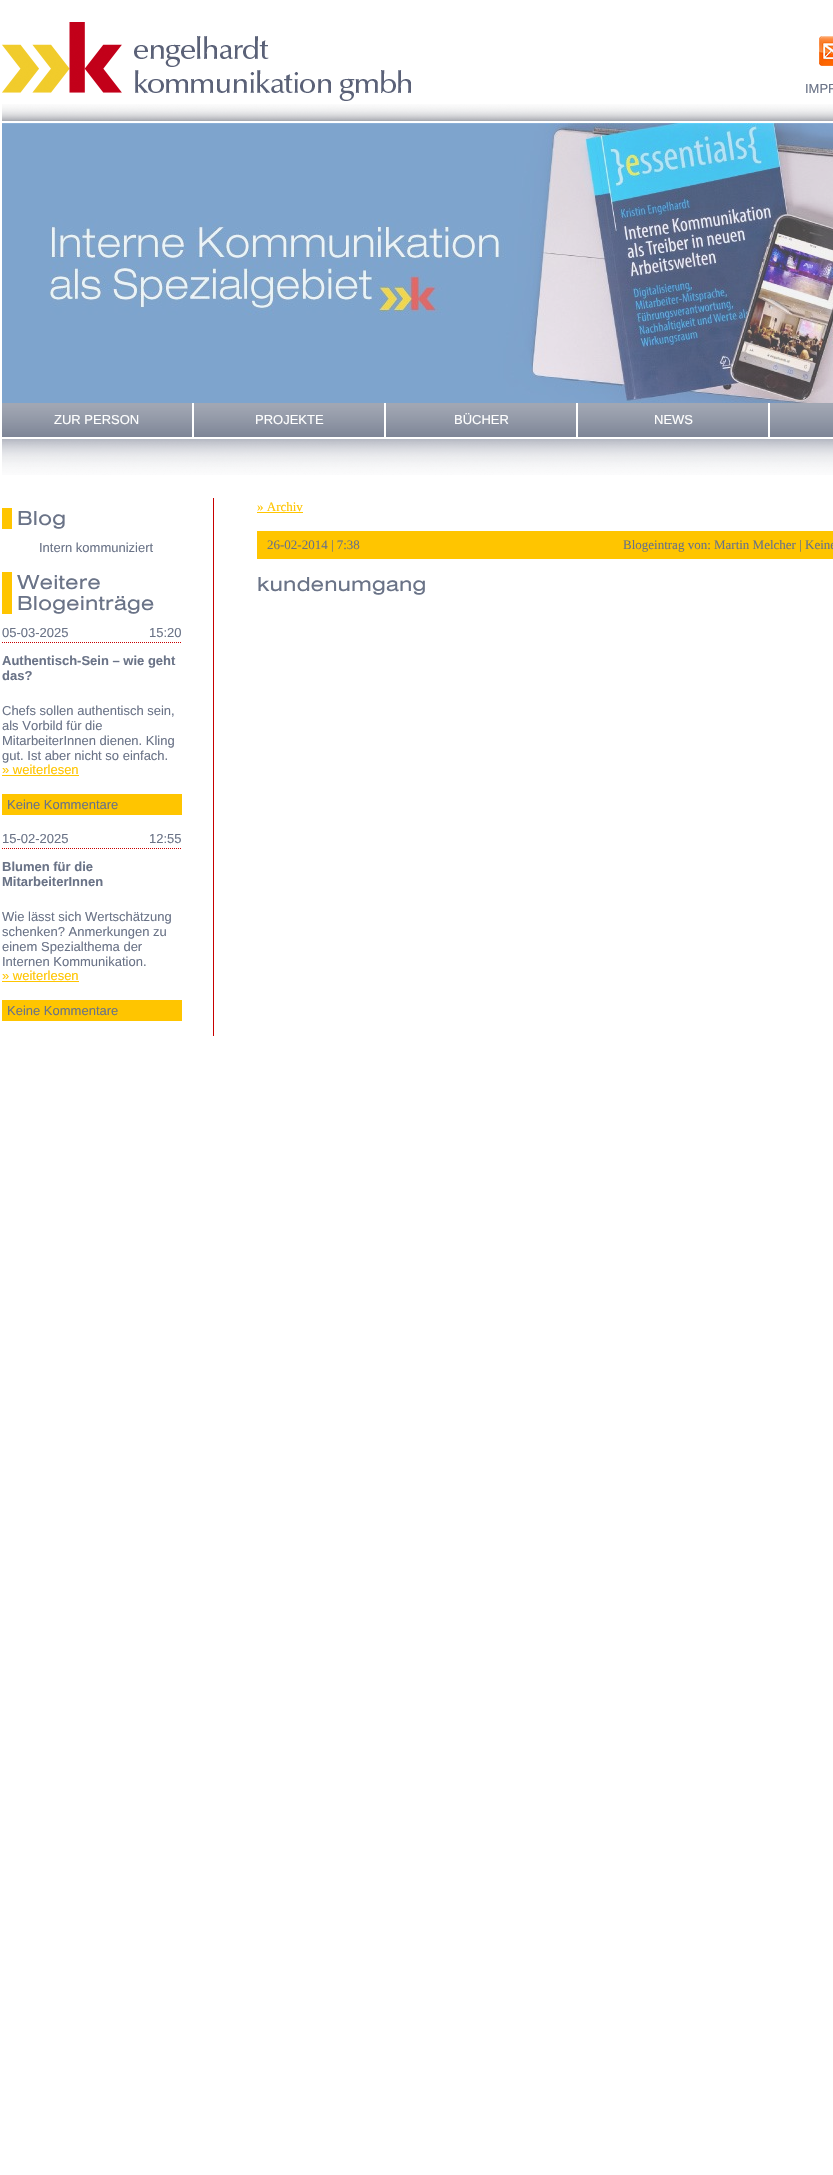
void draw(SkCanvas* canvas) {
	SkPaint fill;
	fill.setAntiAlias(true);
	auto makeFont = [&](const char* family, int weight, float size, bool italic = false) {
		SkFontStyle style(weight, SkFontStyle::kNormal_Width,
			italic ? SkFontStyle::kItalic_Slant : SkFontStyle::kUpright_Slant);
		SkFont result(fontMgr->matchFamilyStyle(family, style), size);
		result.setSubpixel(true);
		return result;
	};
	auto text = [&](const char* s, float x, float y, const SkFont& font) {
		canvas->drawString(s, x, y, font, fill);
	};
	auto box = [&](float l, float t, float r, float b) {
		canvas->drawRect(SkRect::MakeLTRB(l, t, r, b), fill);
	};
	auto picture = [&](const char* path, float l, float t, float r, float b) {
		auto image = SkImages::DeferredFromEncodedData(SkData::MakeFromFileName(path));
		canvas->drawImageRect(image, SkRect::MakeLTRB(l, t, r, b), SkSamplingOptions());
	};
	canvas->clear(0xFFFFFFFF);
	picture("image0.png", 2, 104, 833, 121);
	picture("image1.png", 2, 22, 411, 101);
	picture("image2.png", 819, 36, 833, 66);
	fill.setColor(0xFFD9DCE1);
	box(2, 124, 833, 403);
	picture("image3.png", 2, 123, 833, 403);
	picture("image4.png", 2, 403, 192, 437);
	picture("image4.png", 194, 403, 384, 437);
	picture("image4.png", 386, 403, 576, 437);
	picture("image4.png", 578, 403, 768, 437);
	picture("image5.png", 770, 403, 833, 437);
	picture("image6.png", 2, 439, 833, 475);
	fill.setColor(0xFFC80000);
	box(213, 498, 214, 1036);
	fill.setColor(0xFFFFC500);
	box(2, 508, 12, 529);
	box(2, 572, 12, 614);
	fill.setStyle(SkPaint::kStroke_Style);
	fill.setStrokeWidth(1);
	fill.setColor(0xFFC80000);
	fill.setPathEffect(SkDashPathEffect::Make({{1, 1}}, 0));
	canvas->drawPath(SkPathBuilder().moveTo(2, 642.5f).lineTo(182, 642.5f).detach(), fill);
	fill.setPathEffect(nullptr);
	fill.setStyle(SkPaint::kFill_Style);
	fill.setColor(0xFFFFC500);
	box(2, 775, 79, 776);
	box(2, 794, 182, 815);
	fill.setStyle(SkPaint::kStroke_Style);
	fill.setColor(0xFFC80000);
	fill.setPathEffect(SkDashPathEffect::Make({{1, 1}}, 0));
	canvas->drawPath(SkPathBuilder().moveTo(2, 848.5f).lineTo(182, 848.5f).detach(), fill);
	fill.setPathEffect(nullptr);
	fill.setStyle(SkPaint::kFill_Style);
	fill.setColor(0xFFFFC500);
	box(2, 981, 79, 982);
	box(2, 1000, 182, 1021);
	box(257, 512, 303, 513);
	box(257, 531, 833, 559);
	auto font1 = makeFont("Liberation Sans", 400, 13);
	fill.setColor(0xFF6A7387);
	text("IMPR", 805, 93, font1);
	fill.setColor(0xFFFFFFFF);
	text("ZUR PERSON", 54, 424, font1);
	text("PROJEKTE", 255, 424, font1);
	text("BÜCHER", 454, 424, font1);
	text("NEWS", 654, 424, font1);
	auto font2 = makeFont("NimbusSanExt", 400, 21);
	fill.setColor(0xFF6A7387);
	text("Blog", 17, 525, font2);
	text("Intern kommuniziert", 39, 552, font1);
	text("Weitere", 17, 589, font2);
	text("Blogeinträge", 17, 610, font2);
	text("05-03-2025", 2, 637, font1);
	text("15:20", 149, 637, font1);
	auto font3 = makeFont("Liberation Sans", 700, 13);
	text("Authentisch-Sein – wie geht", 2, 665, font3);
	text("das?", 2, 680, font3);
	text("Chefs sollen authentisch sein,", 2, 715, font1);
	text("als Vorbild für die", 2, 730, font1);
	text("MitarbeiterInnen dienen. Kling", 2, 745, font1);
	text("gut. Ist aber nicht so einfach.", 2, 760, font1);
	fill.setColor(0xFFFFC500);
	text("» weiterlesen", 2, 774, font1);
	fill.setColor(0xFF6A7387);
	text("Keine Kommentare", 7, 809, font1);
	text("15-02-2025", 2, 843, font1);
	text("12:55", 149, 843, font1);
	text("Blumen für die", 2, 871, font3);
	text("MitarbeiterInnen", 2, 886, font3);
	text("Wie lässt sich Wertschätzung", 2, 921, font1);
	text("schenken? Anmerkungen zu", 2, 936, font1);
	text("einem Spezialthema der", 2, 951, font1);
	text("Internen Kommunikation.", 2, 966, font1);
	fill.setColor(0xFFFFC500);
	text("» weiterlesen", 2, 980, font1);
	fill.setColor(0xFF6A7387);
	text("Keine Kommentare", 7, 1015, font1);
	auto font4 = makeFont("Liberation Serif", 400, 13);
	fill.setColor(0xFFFFC500);
	text("» Archiv", 257, 511, font4);
	fill.setColor(0xFF6A7387);
	text("26-02-2014 | 7:38", 267, 549, font4);
	text("Blogeintrag von: Martin Melcher | Keine", 623, 549, font4);
	text("kundenumgang", 257, 591, font2);
}
